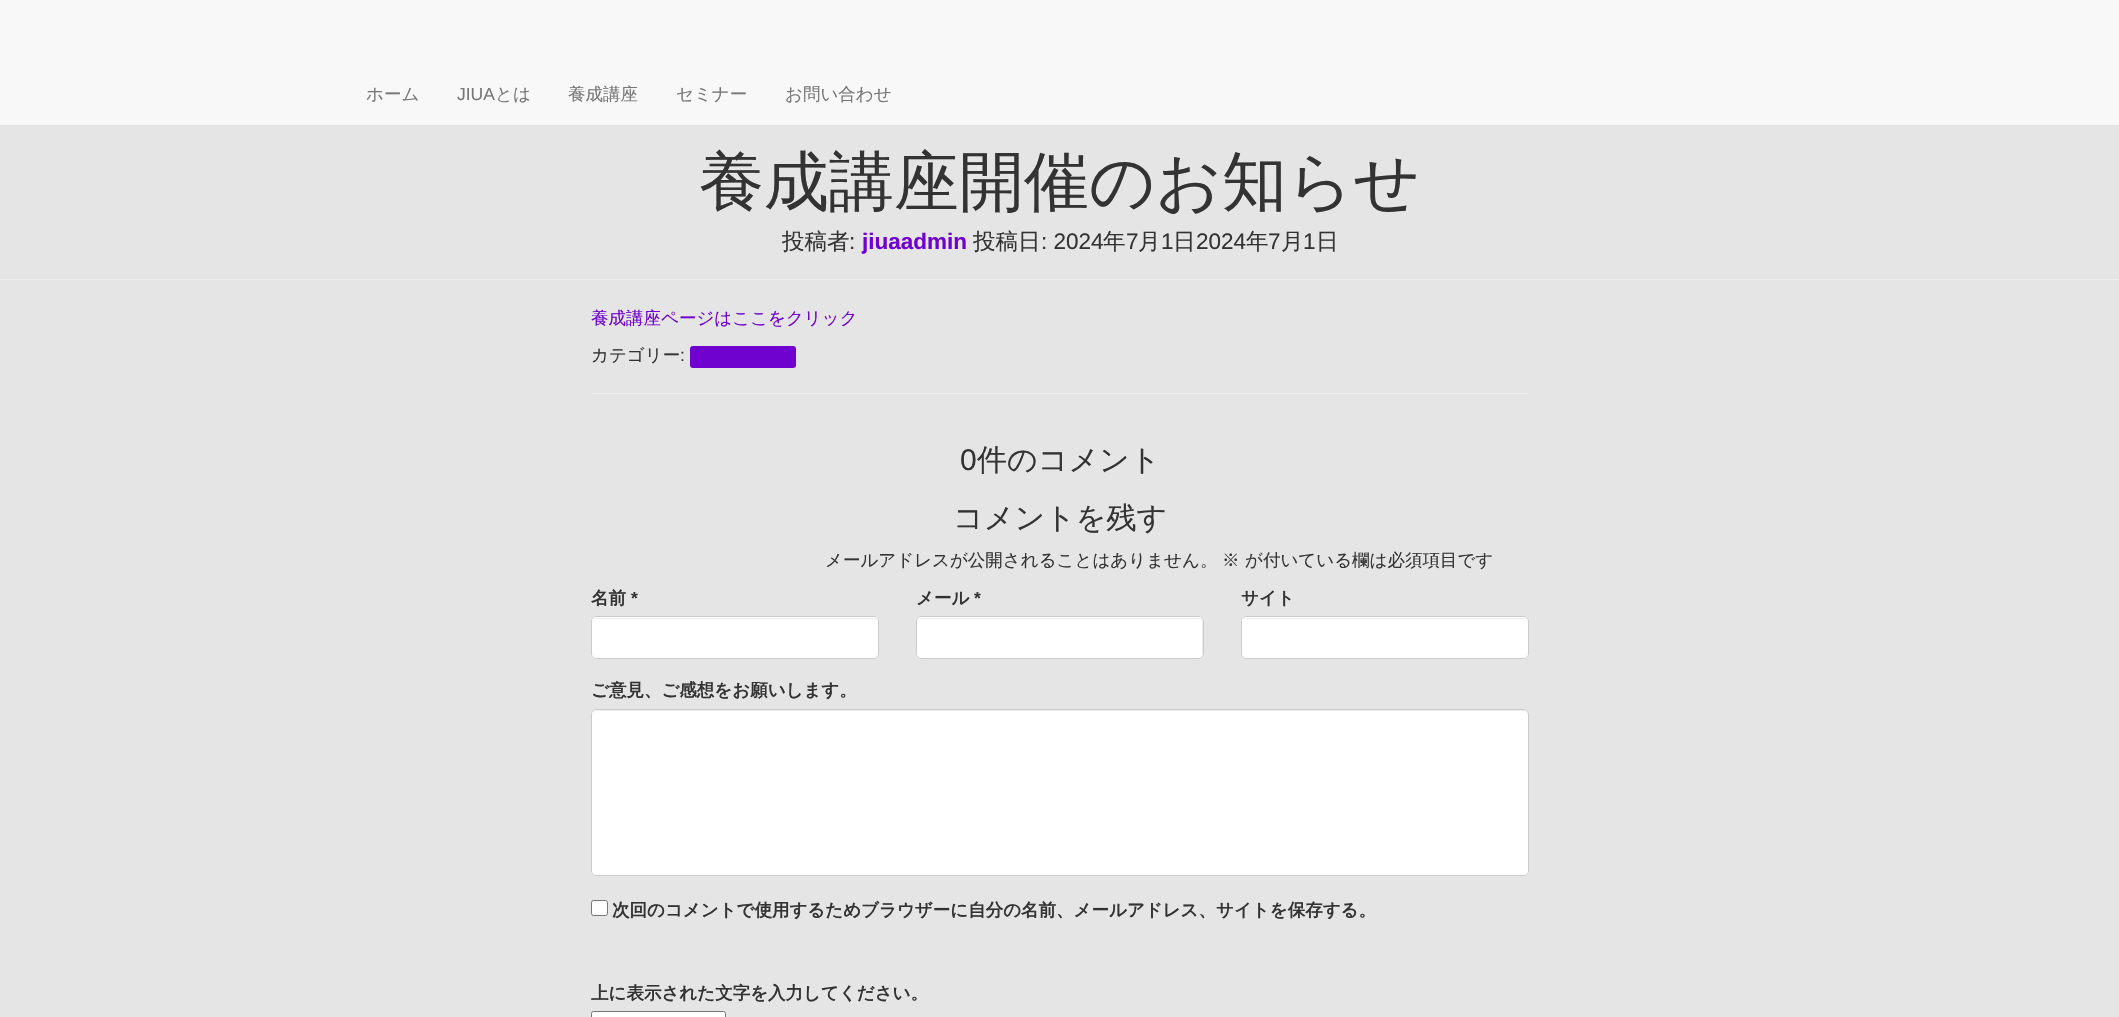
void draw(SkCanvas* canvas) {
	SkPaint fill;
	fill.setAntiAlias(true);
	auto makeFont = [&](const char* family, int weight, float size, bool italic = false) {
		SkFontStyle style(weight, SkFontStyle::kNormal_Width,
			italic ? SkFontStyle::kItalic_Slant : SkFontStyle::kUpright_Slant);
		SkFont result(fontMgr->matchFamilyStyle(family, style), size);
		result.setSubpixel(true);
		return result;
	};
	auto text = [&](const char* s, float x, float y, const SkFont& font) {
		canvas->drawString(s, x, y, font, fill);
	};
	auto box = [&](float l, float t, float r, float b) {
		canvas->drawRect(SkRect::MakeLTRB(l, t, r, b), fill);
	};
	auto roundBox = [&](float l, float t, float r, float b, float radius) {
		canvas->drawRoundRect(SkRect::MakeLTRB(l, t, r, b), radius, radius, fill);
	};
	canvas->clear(0xFFE5E5E5);
	fill.setColor(0xFFF8F8F8);
	box(0, 0, 2119, 125);
	fill.setColor(0xFFEEEEEE);
	box(0, 279, 2119, 280);
	fill.setColor(0xFF6F02CE);
	roundBox(690, 346, 796, 368, 3);
	fill.setColor(0xFFEEEEEE);
	box(591, 393, 1529, 394);
	fill.setColor(0xFFFFFFFF);
	roundBox(591, 616, 879, 659, 5);
	fill.setColor(0xFFECECEC);
	canvas->drawPath(SkPathBuilder().moveTo(596, 619).lineTo(874, 619).cubicTo(876, 619, 878, 620, 878, 622).cubicTo(878, 620, 876, 618, 874, 618).lineTo(597, 618).cubicTo(596, 618, 595, 619, 594, 619).close().detach(), fill);
	fill.setStyle(SkPaint::kStroke_Style);
	fill.setStrokeWidth(1);
	fill.setColor(0xFFCCCCCC);
	canvas->drawRoundRect(SkRect::MakeLTRB(591.5f, 616.5f, 878.5f, 658.5f), 4.5f, 4.5f, fill);
	fill.setStyle(SkPaint::kFill_Style);
	fill.setColor(0xFFFFFFFF);
	roundBox(916, 616, 1204, 659, 5);
	fill.setColor(0xFFECECEC);
	canvas->drawPath(SkPathBuilder().moveTo(921, 619).lineTo(1199, 619).cubicTo(1201, 619, 1202, 620, 1202, 622).lineTo(1202, 657).cubicTo(1202, 656, 1203, 655, 1203, 654).lineTo(1203, 622).cubicTo(1203, 620, 1201, 618, 1199, 618).lineTo(922, 618).cubicTo(921, 618, 919, 619, 919, 620).close().detach(), fill);
	fill.setStyle(SkPaint::kStroke_Style);
	fill.setColor(0xFFCCCCCC);
	canvas->drawRoundRect(SkRect::MakeLTRB(916.5f, 616.5f, 1203.5f, 658.5f), 4.5f, 4.5f, fill);
	fill.setStyle(SkPaint::kFill_Style);
	fill.setColor(0xFFFFFFFF);
	roundBox(1241, 616, 1529, 659, 5);
	fill.setColor(0xFFECECEC);
	canvas->drawPath(SkPathBuilder().moveTo(1246, 619).lineTo(1524, 619).cubicTo(1526, 619, 1528, 620, 1528, 622).cubicTo(1528, 620, 1526, 618, 1524, 618).lineTo(1247, 618).cubicTo(1246, 618, 1245, 619, 1244, 619).close().detach(), fill);
	fill.setStyle(SkPaint::kStroke_Style);
	fill.setColor(0xFFCCCCCC);
	canvas->drawRoundRect(SkRect::MakeLTRB(1241.5f, 616.5f, 1528.5f, 658.5f), 4.5f, 4.5f, fill);
	fill.setStyle(SkPaint::kFill_Style);
	fill.setColor(0xFFFFFFFF);
	roundBox(591, 709, 1529, 876, 5);
	fill.setColor(0xFFECECEC);
	canvas->drawPath(SkPathBuilder().moveTo(596, 711).lineTo(1524, 711).cubicTo(1526, 711, 1528, 713, 1528, 715).lineTo(1528, 714).cubicTo(1528, 712, 1526, 710, 1524, 710).lineTo(597, 710).cubicTo(596, 710, 594, 711, 594, 712).close().detach(), fill);
	fill.setStyle(SkPaint::kStroke_Style);
	fill.setColor(0xFFCCCCCC);
	canvas->drawRoundRect(SkRect::MakeLTRB(591.5f, 709.5f, 1528.5f, 875.5f), 4.5f, 4.5f, fill);
	fill.setStyle(SkPaint::kFill_Style);
	fill.setColor(0xFFFFFFFF);
	canvas->drawRoundRect(SkRect::MakeLTRB(591.5f, 900.5f, 607.5f, 915.5f), 2, 2, fill);
	fill.setStyle(SkPaint::kStroke_Style);
	fill.setColor(0xFF767676);
	canvas->drawRoundRect(SkRect::MakeLTRB(591.5f, 900.5f, 607.5f, 915.5f), 2, 2, fill);
	fill.setStyle(SkPaint::kFill_Style);
	fill.setColor(0xFFFFFFFF);
	canvas->drawRoundRect(SkRect::MakeLTRB(591.5f, 1011.5f, 725.5f, 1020.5f), 2, 2, fill);
	fill.setStyle(SkPaint::kStroke_Style);
	fill.setColor(0xFF767676);
	canvas->drawRoundRect(SkRect::MakeLTRB(591.5f, 1011.5f, 725.5f, 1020.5f), 2, 2, fill);
	auto font1 = makeFont("WenQuanYi Zen Hei", 500, 17.5f);
	fill.setStyle(SkPaint::kFill_Style);
	fill.setColor(0xFF777777);
	text("ホーム", 366, 100, font1);
	auto font2 = makeFont("Liberation Sans", 400, 17.5f);
	text("JIUA", 457, 100, font2);
	text("とは", 495, 100, font1);
	text("養成講座", 568, 100, font1);
	text("セミナー", 676, 100, font1);
	text("お問い合わせ", 785, 100, font1);
	auto font3 = makeFont("WenQuanYi Zen Hei", 500, 65);
	fill.setColor(0xFF333333);
	text("養成講座開催のお知らせ", 699, 204, font3);
	auto font4 = makeFont("WenQuanYi Zen Hei", 500, 22.5f);
	text("投稿者", 782, 249, font4);
	auto font5 = makeFont("Liberation Sans", 400, 22.5f);
	text(":", 849, 249, font5);
	auto font6 = makeFont("Liberation Sans", 700, 22.5f);
	fill.setColor(0xFF6F02CE);
	text("jiuaadmin", 862, 249, font6);
	fill.setColor(0xFF333333);
	text("投稿日", 973, 249, font4);
	text(": 2024", 1041, 249, font5);
	text("年", 1103, 249, font4);
	text("7", 1126, 249, font5);
	text("月", 1138, 249, font4);
	text("1", 1161, 249, font5);
	text("日", 1173, 249, font4);
	text("2024", 1196, 249, font5);
	text("年", 1246, 249, font4);
	text("7", 1268, 249, font5);
	text("月", 1281, 249, font4);
	text("1", 1303, 249, font5);
	text("日", 1316, 249, font4);
	fill.setColor(0xFF6F02CE);
	text("養成講座ページはここをクリック", 591, 324, font1);
	fill.setColor(0xFF333333);
	text("カテゴリー", 591, 361, font1);
	text(":", 680, 361, font2);
	auto font7 = makeFont("Liberation Sans", 400, 30);
	text("0", 960, 470, font7);
	auto font8 = makeFont("WenQuanYi Zen Hei", 500, 30);
	text("件のコメント", 977, 470, font8);
	text("コメントを残す", 953, 528, font8);
	text("メールアドレスが公開されることはありません。", 825, 566, font1);
	text("※", 1222, 566, font1);
	text("が付いている欄は必須項目です", 1245, 566, font1);
	auto font9 = makeFont("WenQuanYi Zen Hei", 700, 17.5f);
	text("名前", 591, 604, font9);
	auto font10 = makeFont("Liberation Sans", 700, 17.5f);
	text("*", 631, 604, font10);
	text("メール", 916, 604, font9);
	text("*", 974, 604, font10);
	text("サイト", 1241, 604, font9);
	text("ご意見、ご感想をお願いします。", 591, 696, font9);
	text("次回のコメントで使用するためブラウザーに自分の名前、メールアドレス、サイトを保存する。", 612, 916, font9);
	text("上に表示された文字を入力してください。", 591, 999, font9);
}
